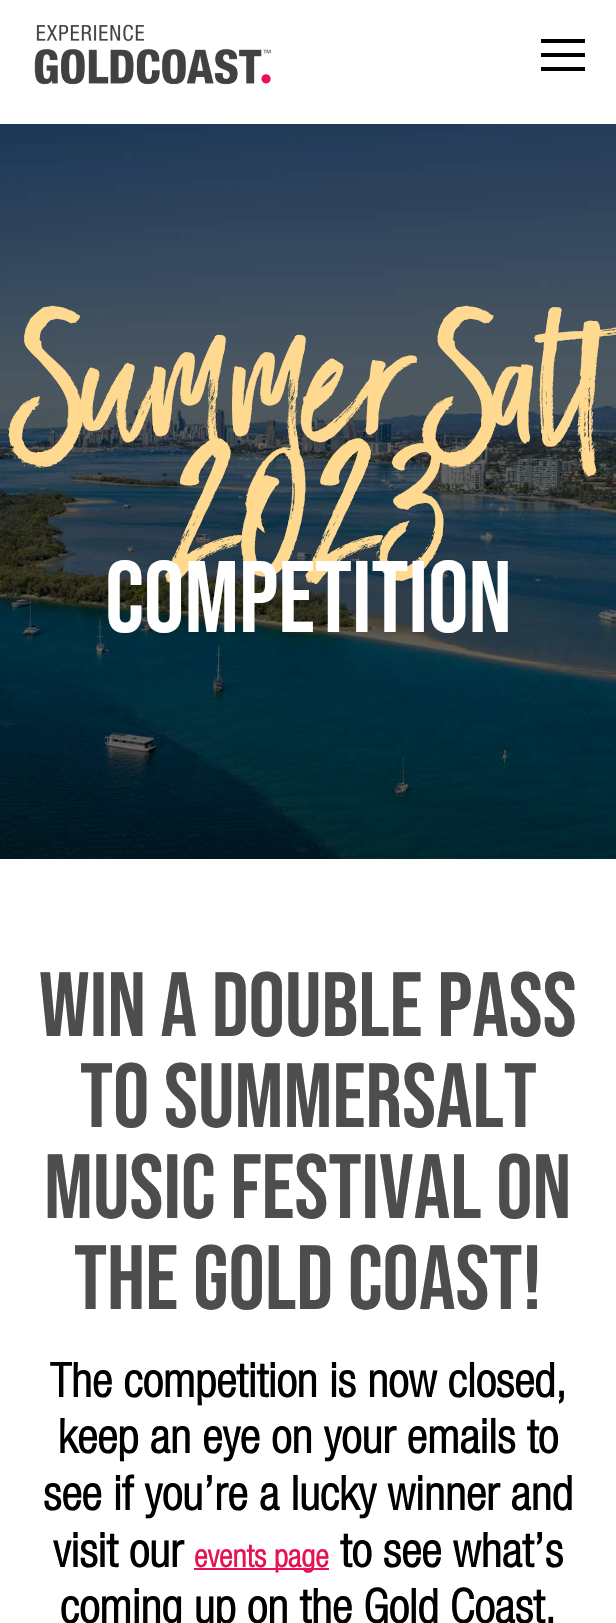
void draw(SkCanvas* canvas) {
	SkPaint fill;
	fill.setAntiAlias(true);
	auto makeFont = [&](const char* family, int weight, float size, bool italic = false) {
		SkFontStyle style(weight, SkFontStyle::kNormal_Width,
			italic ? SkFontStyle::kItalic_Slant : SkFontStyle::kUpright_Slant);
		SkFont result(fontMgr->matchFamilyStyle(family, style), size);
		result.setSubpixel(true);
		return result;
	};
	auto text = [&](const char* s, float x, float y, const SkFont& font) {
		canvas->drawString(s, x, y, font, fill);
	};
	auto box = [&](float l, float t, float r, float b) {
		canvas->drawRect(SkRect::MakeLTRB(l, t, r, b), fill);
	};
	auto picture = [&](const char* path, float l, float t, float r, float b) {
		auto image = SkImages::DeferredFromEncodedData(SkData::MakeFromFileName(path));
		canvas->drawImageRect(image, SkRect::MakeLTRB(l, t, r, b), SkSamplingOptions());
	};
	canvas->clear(0xFFFFFFFF);
	picture("image0.png", 34, 24, 271, 85);
	fill.setColor(0xFF000000);
	box(541, 39, 585, 43);
	box(541, 53, 585, 57);
	box(541, 67, 585, 71);
	box(0, 124, 616, 859);
	picture("image1.png", 0, 124, 616, 859);
	fill.setColor(0xFFE81152);
	box(194, 1568, 329, 1570);
	auto font1 = makeFont("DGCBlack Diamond", 900, 168);
	fill.setColor(0xFFFFD990);
	text("SummerSalt", 4, 430, font1);
	text("2023", 168, 548, font1);
	auto font2 = makeFont("Bebas Neue", 400, 101.5f);
	fill.setColor(0xFFFFFFFF);
	text("Competition", 105, 632, font2);
	auto font3 = makeFont("Bebas Neue", 400, 91);
	fill.setColor(0xFF4D4D4D);
	text("WIN A DOUBLE PASS", 39, 1036, font3);
	text("TO SUMMERSALT", 80, 1127, font3);
	text("MUSIC FESTIVAL ON", 44, 1218, font3);
	text("THE GOLD COAST!", 74, 1309, font3);
	auto font4 = makeFont("Helvetica Neue", 700, 47.25f);
	fill.setColor(0xFF000000);
	text("The competition is now closed,", 50, 1397, font4);
	text("keep an eye on your emails to", 58, 1453, font4);
	text("see if you’re a lucky winner and", 43, 1510, font4);
	text("visit our", 53, 1567, font4);
	auto font5 = makeFont("Helvetica Neue", 700, 31.5f);
	fill.setColor(0xFFE81152);
	text("events page", 194, 1567, font5);
	fill.setColor(0xFF000000);
	text("to see what’s", 340, 1567, font4);
	text("coming up on the Gold Coast.", 60, 1623, font4);
}
